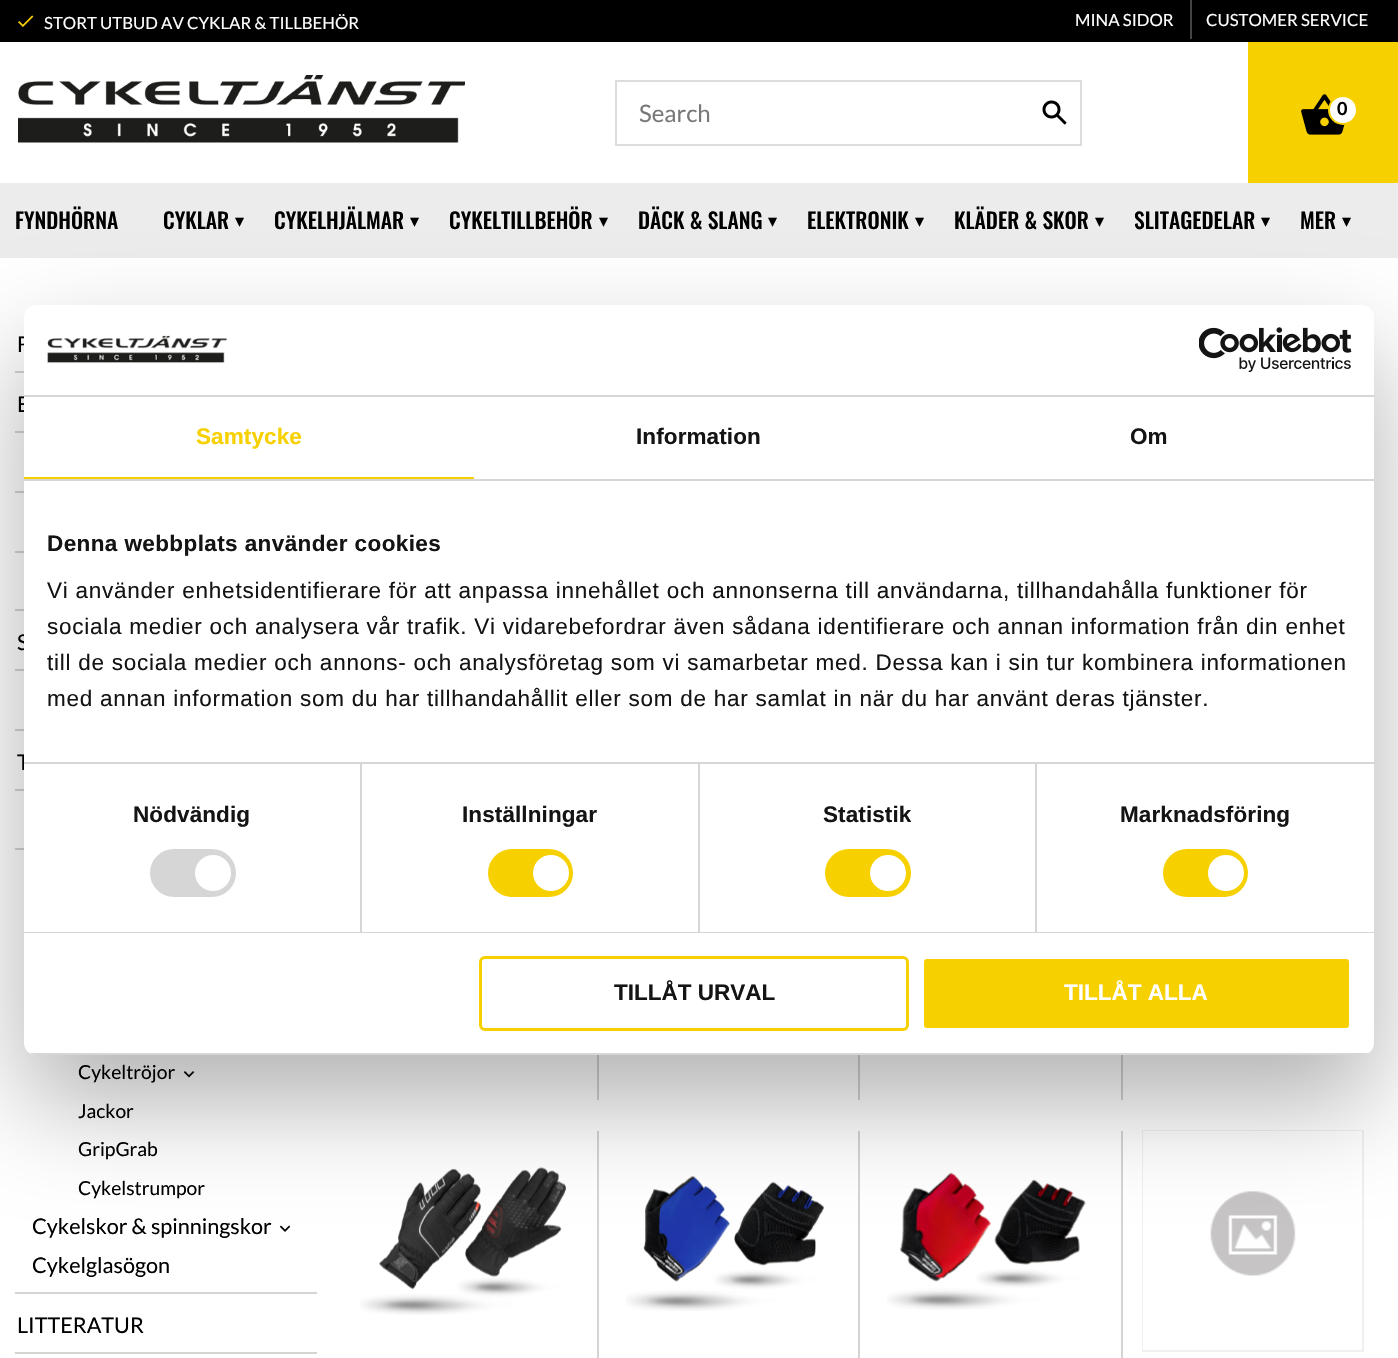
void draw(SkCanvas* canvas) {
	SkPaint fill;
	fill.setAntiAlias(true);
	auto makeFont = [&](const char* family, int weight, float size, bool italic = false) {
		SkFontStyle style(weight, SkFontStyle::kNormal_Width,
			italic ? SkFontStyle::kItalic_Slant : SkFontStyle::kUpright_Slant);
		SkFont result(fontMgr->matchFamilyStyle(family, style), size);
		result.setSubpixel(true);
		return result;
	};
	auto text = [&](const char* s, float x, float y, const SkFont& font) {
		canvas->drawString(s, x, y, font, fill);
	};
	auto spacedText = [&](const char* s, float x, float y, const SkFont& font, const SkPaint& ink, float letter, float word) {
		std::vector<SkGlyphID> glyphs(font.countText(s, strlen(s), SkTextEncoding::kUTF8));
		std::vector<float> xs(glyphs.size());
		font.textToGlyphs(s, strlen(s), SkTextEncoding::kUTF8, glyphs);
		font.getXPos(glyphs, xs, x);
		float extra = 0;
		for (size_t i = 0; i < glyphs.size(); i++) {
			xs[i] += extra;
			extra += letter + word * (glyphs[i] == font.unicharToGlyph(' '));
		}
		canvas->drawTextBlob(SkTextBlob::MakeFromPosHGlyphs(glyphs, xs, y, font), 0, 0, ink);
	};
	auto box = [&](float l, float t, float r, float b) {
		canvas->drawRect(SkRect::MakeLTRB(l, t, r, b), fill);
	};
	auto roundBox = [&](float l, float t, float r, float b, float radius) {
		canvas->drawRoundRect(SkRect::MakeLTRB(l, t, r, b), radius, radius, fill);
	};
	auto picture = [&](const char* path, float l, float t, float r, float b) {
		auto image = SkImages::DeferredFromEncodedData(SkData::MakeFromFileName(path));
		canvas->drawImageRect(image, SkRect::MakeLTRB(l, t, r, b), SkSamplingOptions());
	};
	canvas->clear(0xFFFFFFFF);
	fill.setColor(0xFF000000);
	box(0, 0, 1398, 42);
	picture("image0.png", 18, 15, 34, 27);
	fill.setColor(0xFF444444);
	box(1190, 0, 1192, 39);
	fill.setStyle(SkPaint::kStroke_Style);
	fill.setStrokeWidth(2);
	fill.setColor(0xFFDDDDDD);
	canvas->drawRect(SkRect::MakeLTRB(616, 81, 1081, 145), fill);
	picture("image1.png", 1042, 100, 1067, 125);
	fill.setStyle(SkPaint::kFill_Style);
	fill.setColor(0xFFF7D000);
	box(1248, 42, 1398, 183);
	picture("image2.png", 1301, 94, 1345, 135);
	fill.setColor(0xFFFFFFFF);
	canvas->drawCircle(1343, 110, 14, fill);
	fill.setStyle(SkPaint::kStroke_Style);
	fill.setColor(0xFFF7D000);
	canvas->drawCircle(1343, 110, 14, fill);
	picture("image3.png", 18, 75, 465, 143);
	fill.setStyle(SkPaint::kFill_Style);
	fill.setColor(0xFFECECEC);
	box(0, 183, 1398, 258);
	fill.setColor(0xFFD4D4D4);
	box(15, 371, 24, 373);
	box(15, 431, 24, 433);
	box(15, 491, 24, 493);
	box(15, 551, 24, 553);
	box(15, 609, 24, 611);
	box(15, 669, 24, 671);
	box(15, 729, 24, 731);
	box(15, 789, 24, 791);
	box(15, 848, 24, 850);
	box(15, 1292, 317, 1294);
	picture("image4.png", 183, 1071, 195, 1078);
	picture("image5.png", 279, 1225, 291, 1232);
	box(15, 1352, 317, 1354);
	box(597, 1055, 599, 1100);
	box(858, 1055, 860, 1100);
	box(1121, 1055, 1123, 1100);
	box(597, 1131, 599, 1358);
	picture("image6.png", 360, 1167, 566, 1315);
	box(858, 1131, 860, 1358);
	picture("image7.png", 626, 1176, 825, 1311);
	box(1121, 1131, 1123, 1358);
	picture("image8.png", 887, 1172, 1086, 1310);
	fill.setStyle(SkPaint::kStroke_Style);
	fill.setColor(0xFFF0F0F0);
	canvas->drawRect(SkRect::MakeLTRB(1143, 1131, 1363, 1351), fill);
	fill.setStyle(SkPaint::kFill_Style);
	fill.setColor(0xFFFFFFFF);
	box(1143, 1131, 1362, 1350);
	picture("image9.png", 1210, 1191, 1296, 1276);
	fill.setColor(0x4D000000);
	fill.setMaskFilter(SkMaskFilter::MakeBlur(kNormal_SkBlurStyle, 51));
	canvas->drawRoundRect(SkRect::MakeLTRB(24, 353, 1374, 1103), 12, 12, fill);
	fill.setMaskFilter(nullptr);
	auto font1 = makeFont("Lato", 400, 16.75f);
	fill.setColor(0xFFFFFFFF);
	text("STORT UTBUD AV CYKLAR & TILLBEHÖR", 44, 29, font1);
	text("MINA SIDOR", 1075, 26, font1);
	text("CUSTOMER SERVICE", 1206, 26, font1);
	auto font2 = makeFont("Lato", 400, 24);
	fill.setColor(0xFF787878);
	text("Search", 639, 122, font2);
	auto font3 = makeFont("Lato", 700, 18);
	fill.setColor(0xFF000000);
	text("0", 1337, 115, font3);
	auto font4 = makeFont("Oswald", 500, 21.6f);
	text("FYNDHÖRNA", 15, 229, font4);
	text("CYKLAR", 163, 229, font4);
	auto font5 = makeFont("DejaVu Sans", 400, 18);
	text("▾", 235, 227, font5);
	text("CYKELHJÄLMAR", 274, 229, font4);
	text("▾", 410, 227, font5);
	text("CYKELTILLBEHÖR", 449, 229, font4);
	text("▾", 599, 227, font5);
	text("DÄCK & SLANG", 638, 229, font4);
	text("▾", 768, 227, font5);
	text("ELEKTRONIK", 807, 229, font4);
	text("▾", 915, 227, font5);
	text("KLÄDER & SKOR", 954, 229, font4);
	text("▾", 1095, 227, font5);
	text("SLITAGEDELAR", 1134, 229, font4);
	text("▾", 1261, 227, font5);
	text("MER", 1300, 229, font4);
	text("▾", 1342, 227, font5);
	auto font6 = makeFont("Lato", 400, 21.6f);
	text("F", 17, 352, font6);
	text("E", 17, 412, font6);
	text("S", 17, 650, font6);
	text("T", 17, 770, font6);
	auto font7 = makeFont("Lato", 400, 19.25f);
	text("Cykeltröjor", 78, 1079, font7);
	text("Jackor", 78, 1118, font7);
	text("GripGrab", 78, 1156, font7);
	text("Cykelstrumpor", 78, 1195, font7);
	text("Cykelskor & spinningskor", 32, 1234, font6);
	text("Cykelglasögon", 32, 1273, font6);
	text("LITTERATUR", 17, 1333, font6);
	fill.setColor(0xFFFFFFFF);
	roundBox(24, 305, 1374, 1055, 12);
	fill.setColor(0xFFD6D6D6);
	box(24, 395, 1374, 397);
	picture("image10.png", 47, 335, 227, 363);
	picture("image11.png", 1199, 327, 1352, 372);
	box(24, 479, 1374, 481);
	fill.setColor(0xFFF7D000);
	box(24, 477, 474, 479);
	auto font8 = makeFont("Liberation Sans", 700, 22.5f);
	spacedText("Samtycke", 196, 444, font8, fill, 0.1f, 0);
	fill.setColor(0xFF141414);
	spacedText("Information", 636, 444, font8, fill, 0.1f, 0);
	spacedText("Om", 1130, 444, font8, fill, 0.1f, 0);
	fill.setColor(0xFFD6D6D6);
	box(24, 762, 1374, 764);
	fill.setColor(0xFF141414);
	spacedText("Denna webbplats använder cookies", 47, 551, font8, fill, 0.4f, 0);
	auto font9 = makeFont("Liberation Sans", 400, 22.5f);
	spacedText("Vi använder enhetsidentifierare för att anpassa innehållet och annonserna till användarna, tillhandahålla funktioner för", 47, 598, font9, fill, 0.75f, 0);
	spacedText("sociala medier och analysera vår trafik. Vi vidarebefordrar även sådana identifierare och annan information från din enhet", 47, 634, font9, fill, 0.75f, 0);
	spacedText("till de sociala medier och annons- och analysföretag som vi samarbetar med. Dessa kan i sin tur kombinera informationen", 47, 670, font9, fill, 0.75f, 0);
	spacedText("med annan information som du har tillhandahållit eller som de har samlat in när du har använt deras tjänster.", 47, 706, font9, fill, 0.75f, 0);
	fill.setColor(0xFFD6D6D6);
	box(24, 932, 1374, 933);
	box(360, 764, 362, 932);
	fill.setColor(0xFF141414);
	spacedText("Nödvändig", 133, 822, font8, fill, 0.1f, 0);
	fill.setColor(0xFFD6D6D6);
	roundBox(150, 849, 236, 897, 24);
	fill.setColor(0xFFFFFFFF);
	canvas->drawCircle(213, 873, 18, fill);
	fill.setColor(0xFFD6D6D6);
	box(698, 764, 700, 932);
	fill.setColor(0xFF141414);
	spacedText("Inställningar", 462, 822, font8, fill, 0.1f, 0);
	fill.setColor(0xFFF7D000);
	roundBox(488, 849, 573, 897, 24);
	fill.setColor(0xFFFFFFFF);
	canvas->drawCircle(551, 873, 18, fill);
	fill.setColor(0xFFD6D6D6);
	box(1035, 764, 1037, 932);
	fill.setColor(0xFF141414);
	spacedText("Statistik", 823, 822, font8, fill, 0.1f, 0);
	fill.setColor(0xFFF7D000);
	roundBox(825, 849, 911, 897, 24);
	fill.setColor(0xFFFFFFFF);
	canvas->drawCircle(888, 873, 18, fill);
	fill.setColor(0xFF141414);
	spacedText("Marknadsföring", 1120, 822, font8, fill, 0.1f, 0);
	fill.setColor(0xFFF7D000);
	roundBox(1163, 849, 1248, 897, 24);
	fill.setColor(0xFFFFFFFF);
	canvas->drawCircle(1226, 873, 18, fill);
	canvas->save();
	canvas->clipPath(SkPathBuilder().moveTo(36, 305).lineTo(1362, 305).cubicTo(1368.5f, 305, 1374, 310.5f, 1374, 317).lineTo(1374, 1043).cubicTo(1374, 1049.5f, 1368.5f, 1055, 1362, 1055).lineTo(36, 1055).cubicTo(29.5f, 1055, 24, 1049.5f, 24, 1043).lineTo(24, 317).cubicTo(24, 310.5f, 29.5f, 305, 36, 305).close().detach(), true);
	fill.setColor(0xFFD6D6D6);
	box(24, 1053, 1374, 1055);
	canvas->restore();
	fill.setStyle(SkPaint::kStroke_Style);
	fill.setStrokeWidth(3);
	fill.setColor(0xFFF7D000);
	canvas->drawRoundRect(SkRect::MakeLTRB(480.5f, 957.5f, 907.5f, 1029.5f), 4.5f, 4.5f, fill);
	fill.setStyle(SkPaint::kFill_Style);
	fill.setColor(0xFF141414);
	text("TILLÅT URVAL", 614, 1000, font8);
	fill.setColor(0xFFF7D000);
	canvas->drawRoundRect(SkRect::MakeLTRB(922.5f, 957.5f, 1350.5f, 1029.5f), 4.5f, 4.5f, fill);
	fill.setStyle(SkPaint::kStroke_Style);
	fill.setColor(0xFFFFFFFF);
	canvas->drawRoundRect(SkRect::MakeLTRB(922.5f, 957.5f, 1350.5f, 1029.5f), 4.5f, 4.5f, fill);
	fill.setStyle(SkPaint::kFill_Style);
	text("TILLÅT ALLA", 1064, 1000, font8);
}
